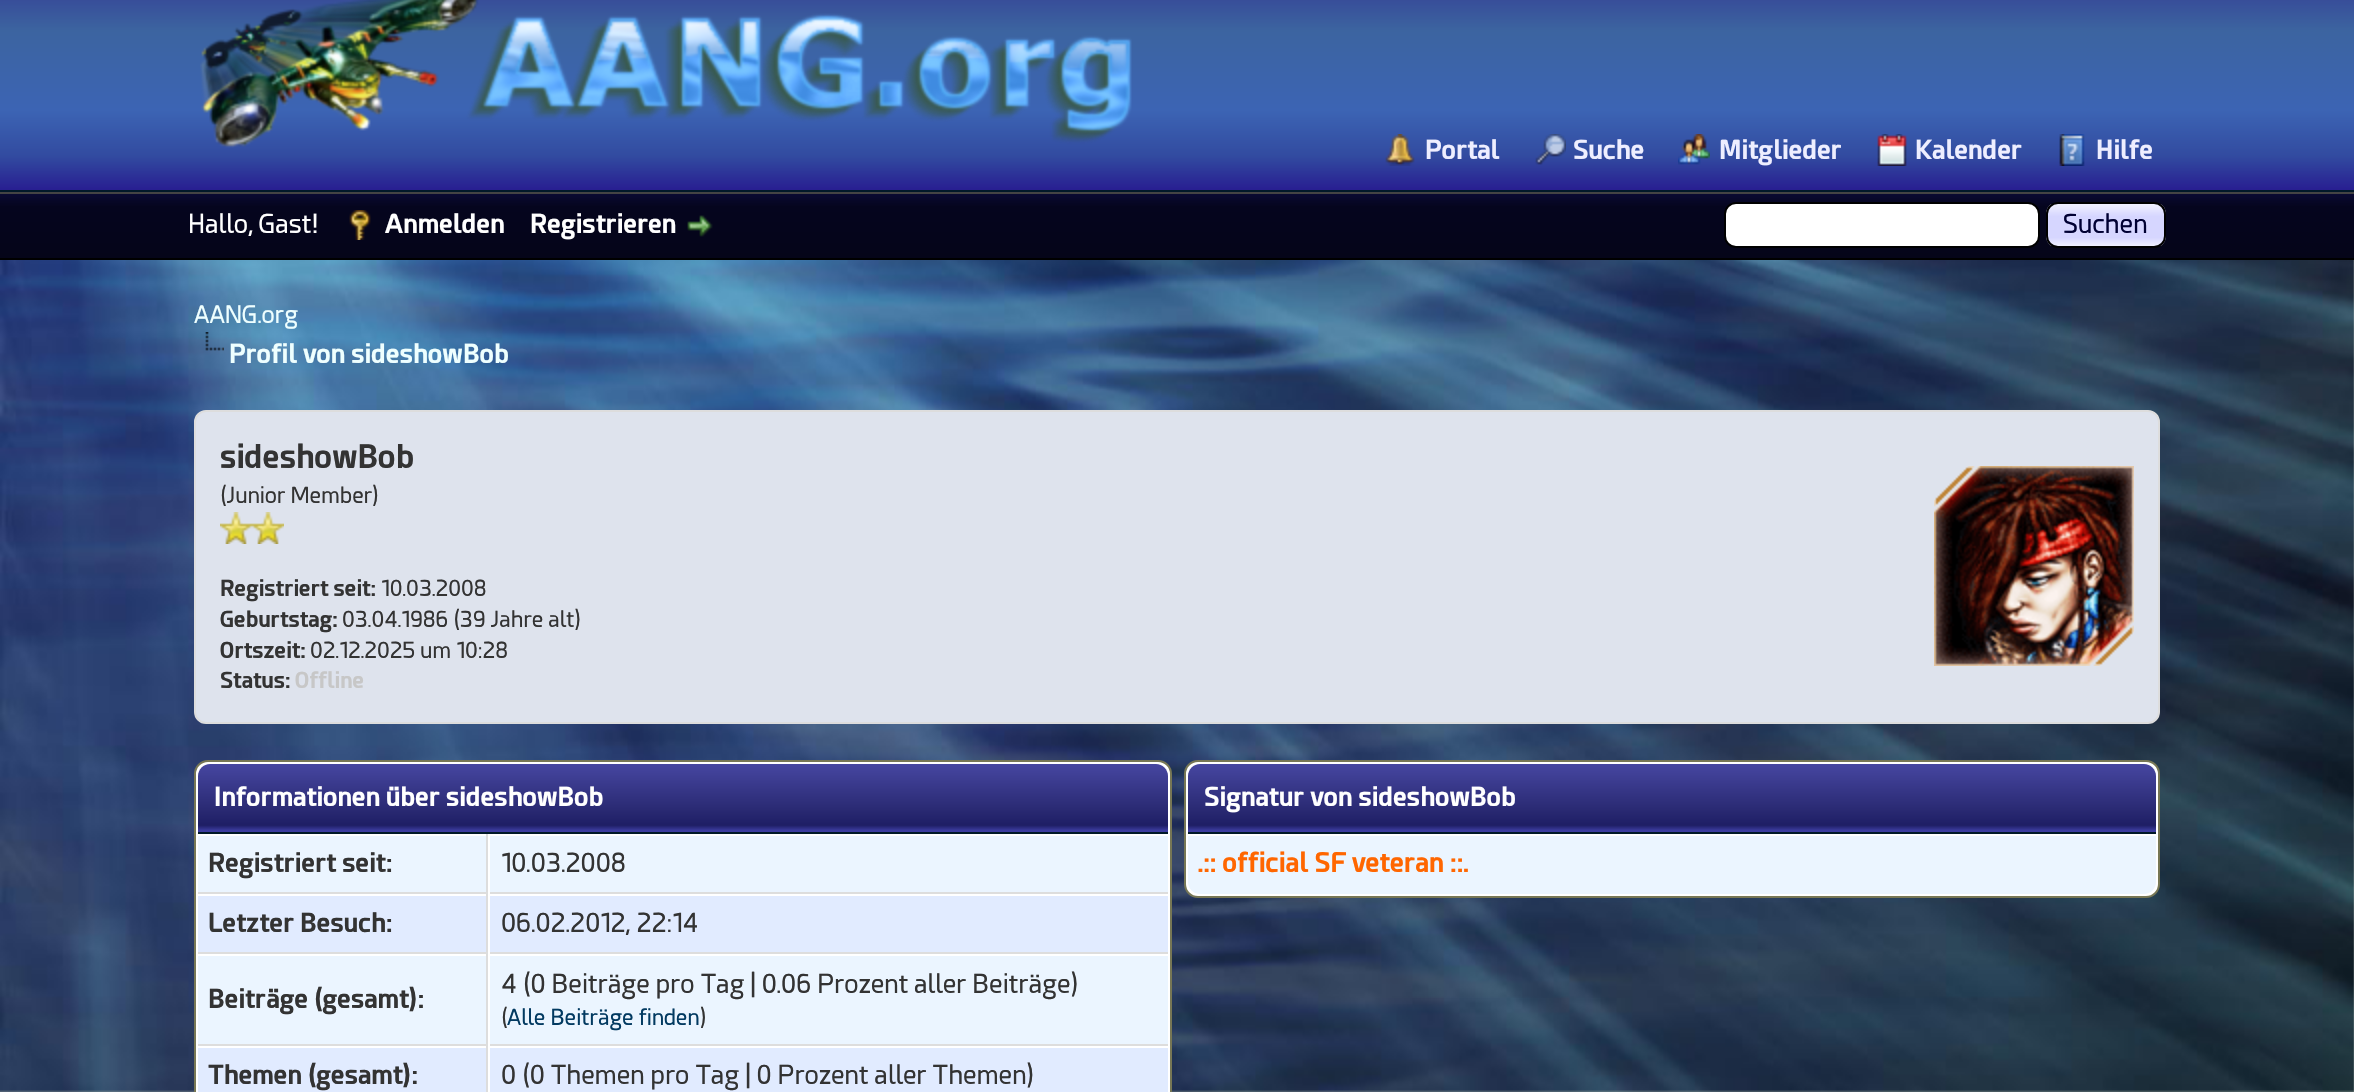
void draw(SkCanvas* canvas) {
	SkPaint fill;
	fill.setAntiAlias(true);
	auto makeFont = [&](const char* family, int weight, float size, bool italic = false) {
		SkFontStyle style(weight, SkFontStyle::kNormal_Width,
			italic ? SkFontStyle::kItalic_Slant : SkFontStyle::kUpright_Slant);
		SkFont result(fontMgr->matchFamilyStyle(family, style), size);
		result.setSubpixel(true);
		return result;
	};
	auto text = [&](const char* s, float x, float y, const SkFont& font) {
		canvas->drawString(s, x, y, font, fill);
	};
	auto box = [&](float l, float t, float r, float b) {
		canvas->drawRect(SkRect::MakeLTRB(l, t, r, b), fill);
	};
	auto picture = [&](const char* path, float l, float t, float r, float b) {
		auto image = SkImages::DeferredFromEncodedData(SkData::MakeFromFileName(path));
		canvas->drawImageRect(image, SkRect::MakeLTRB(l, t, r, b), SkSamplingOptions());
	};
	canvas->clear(0xFFFFFFFF);
	{
		const SkColor colors[] = {0xFF323291, 0xFF3C64A0, 0xFF3C64B4, 0xFF324BA0, 0xFF281E91};
		const float stops[] = {0, 0.3f, 0.65f, 0.85f, 1};
		const SkPoint ends[] = {{1177, -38}, {1177, 190}};
		fill.setShader(SkGradientShader::MakeLinear(ends, colors, stops, 5, SkTileMode::kClamp));
		fill.setAlpha(255);
	}
	box(0, 0, 2354, 190);
	fill.setShader(nullptr);
	fill.setColor(0xFF011929);
	box(0, 190, 2354, 192);
	picture("image0.png", 200, 0, 1132, 148);
	picture("image1.png", 1385, 134, 1415, 166);
	picture("image2.png", 1535, 134, 1566, 165);
	picture("image3.png", 1678, 134, 1710, 165);
	picture("image4.png", 1877, 134, 1907, 166);
	picture("image5.png", 2059, 134, 2085, 166);
	{
		const SkColor colors[] = {0xFF0A0A32, 0xFF05051E, 0xFF050519};
		const float stops[] = {0, 0.2f, 1};
		const SkPoint ends[] = {{1177, 194}, {1177, 258}};
		fill.setShader(SkGradientShader::MakeLinear(ends, colors, stops, 3, SkTileMode::kClamp));
		fill.setAlpha(255);
	}
	box(0, 194, 2354, 258);
	fill.setShader(nullptr);
	fill.setColor(0xFF444444);
	box(0, 192, 2354, 194);
	fill.setColor(0xFF000000);
	box(0, 258, 2354, 260);
	picture("image6.png", 349, 210, 371, 240);
	picture("image7.png", 687, 215, 713, 237);
	fill.setColor(0xFFFFFFFF);
	canvas->drawRoundRect(SkRect::MakeLTRB(1725, 203, 2039, 247), 11, 11, fill);
	fill.setStyle(SkPaint::kStroke_Style);
	fill.setStrokeWidth(2);
	fill.setColor(0xFF000000);
	canvas->drawRoundRect(SkRect::MakeLTRB(1725, 203, 2039, 247), 11, 11, fill);
	canvas->save();
	canvas->clipPath(SkPathBuilder().moveTo(2058, 202).lineTo(2154, 202).cubicTo(2160.5f, 202, 2166, 207.5f, 2166, 214).lineTo(2166, 236).cubicTo(2166, 242.5f, 2160.5f, 248, 2154, 248).lineTo(2058, 248).cubicTo(2051.5f, 248, 2046, 242.5f, 2046, 236).lineTo(2046, 214).cubicTo(2046, 207.5f, 2051.5f, 202, 2058, 202).close().detach(), true);
	fill.setStyle(SkPaint::kFill_Style);
	{
		const SkColor colors[] = {0xFFF0F0FF, 0xFFD6D6FF, 0xFFD6D6FF, 0xFFF0F0FF};
		const float stops[] = {0, 0.3f, 0.8f, 1};
		const SkPoint ends[] = {{2106, 204}, {2106, 246}};
		fill.setShader(SkGradientShader::MakeLinear(ends, colors, stops, 4, SkTileMode::kClamp));
		fill.setAlpha(255);
	}
	box(2046, 204, 2166, 246);
	canvas->restore();
	fill.setStyle(SkPaint::kStroke_Style);
	fill.setShader(nullptr);
	fill.setColor(0xFF000000);
	canvas->drawRoundRect(SkRect::MakeLTRB(2047, 203, 2165, 247), 11, 11, fill);
	fill.setStyle(SkPaint::kFill_Style);
	fill.setColor(0xFFACB9AC);
	box(0, 260, 2354, 1092);
	picture("image8.png", 0, 260, 2354, 1092);
	picture("image9.png", 205, 332, 224, 351);
	fill.setColor(0xFFDEE3ED);
	canvas->drawRoundRect(SkRect::MakeLTRB(195, 411, 2159, 723), 11, 11, fill);
	fill.setStyle(SkPaint::kStroke_Style);
	fill.setColor(0xFFDDDDDD);
	canvas->drawRoundRect(SkRect::MakeLTRB(195, 411, 2159, 723), 11, 11, fill);
	picture("image10.png", 220, 512, 252, 544);
	picture("image10.png", 252, 512, 284, 544);
	picture("image11.png", 1934, 466, 2134, 666);
	fill.setStyle(SkPaint::kFill_Style);
	fill.setColor(0xFFFFFFFF);
	canvas->drawRoundRect(SkRect::MakeLTRB(195, 761, 1171, 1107), 13, 13, fill);
	fill.setStyle(SkPaint::kStroke_Style);
	fill.setColor(0xFF777755);
	canvas->drawRoundRect(SkRect::MakeLTRB(195, 761, 1171, 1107), 13, 13, fill);
	fill.setStyle(SkPaint::kFill_Style);
	{
		const SkColor colors[] = {0xFF4646A0, 0xFF2D2D78, 0xFF1E1E64, 0xFF3C3CA0, 0xFF3C3CA0};
		const float stops[] = {0, 0.6f, 0.9f, 0.98f, 1};
		const SkPoint ends[] = {{683, 764}, {683, 832}};
		fill.setShader(SkGradientShader::MakeLinear(ends, colors, stops, 5, SkTileMode::kClamp));
		fill.setAlpha(255);
	}
	canvas->drawPath(SkPathBuilder().moveTo(210, 764).lineTo(1156, 764).cubicTo(1162.5f, 764, 1168, 769.5f, 1168, 776).lineTo(1168, 832).lineTo(198, 832).lineTo(198, 776).cubicTo(198, 769.5f, 203.5f, 764, 210, 764).close().detach(), fill);
	fill.setShader(nullptr);
	fill.setColor(0xFF011929);
	box(198, 832, 1168, 834);
	fill.setColor(0xFFEBF5FF);
	box(198, 836, 486, 892);
	fill.setColor(0xFFDDDDDD);
	box(486, 834, 488, 1092);
	box(198, 892, 1168, 894);
	fill.setColor(0xFFEBF5FF);
	box(490, 836, 1168, 892);
	fill.setColor(0xFFFFFFFF);
	box(488, 892, 490, 894);
	fill.setColor(0xFFE1EBFF);
	box(198, 896, 486, 952);
	fill.setColor(0xFFDDDDDD);
	box(198, 952, 1168, 954);
	fill.setColor(0xFFE1EBFF);
	box(490, 896, 1168, 952);
	fill.setColor(0xFFFFFFFF);
	box(488, 952, 490, 954);
	fill.setColor(0xFFEBF5FF);
	box(198, 956, 486, 1044);
	fill.setColor(0xFFDDDDDD);
	box(198, 1044, 1168, 1046);
	fill.setColor(0xFFEBF5FF);
	box(490, 956, 1168, 1044);
	fill.setColor(0xFFFFFFFF);
	box(488, 1044, 490, 1046);
	fill.setColor(0xFFE1EBFF);
	box(198, 1048, 486, 1092);
	box(490, 1048, 1168, 1092);
	fill.setColor(0xFFFFFFFF);
	canvas->drawRoundRect(SkRect::MakeLTRB(1185, 761, 2159, 897), 13, 13, fill);
	fill.setStyle(SkPaint::kStroke_Style);
	fill.setColor(0xFF777755);
	canvas->drawRoundRect(SkRect::MakeLTRB(1185, 761, 2159, 897), 13, 13, fill);
	fill.setStyle(SkPaint::kFill_Style);
	{
		const SkColor colors[] = {0xFF4646A0, 0xFF2D2D78, 0xFF1E1E64, 0xFF3C3CA0, 0xFF3C3CA0};
		const float stops[] = {0, 0.6f, 0.9f, 0.98f, 1};
		const SkPoint ends[] = {{1672, 764}, {1672, 832}};
		fill.setShader(SkGradientShader::MakeLinear(ends, colors, stops, 5, SkTileMode::kClamp));
		fill.setAlpha(255);
	}
	canvas->drawPath(SkPathBuilder().moveTo(1200, 764).lineTo(2144, 764).cubicTo(2150.5f, 764, 2156, 769.5f, 2156, 776).lineTo(2156, 832).lineTo(1188, 832).lineTo(1188, 776).cubicTo(1188, 769.5f, 1193.5f, 764, 1200, 764).close().detach(), fill);
	fill.setShader(nullptr);
	fill.setColor(0xFF011929);
	box(1188, 832, 2156, 834);
	fill.setColor(0xFFEBF5FF);
	canvas->drawPath(SkPathBuilder().moveTo(1188, 834).lineTo(2156, 834).lineTo(2156, 882).cubicTo(2156, 888.5f, 2150.5f, 894, 2144, 894).lineTo(1200, 894).cubicTo(1193.5f, 894, 1188, 888.5f, 1188, 882).close().detach(), fill);
	fill.setColor(0xFFFFFFFF);
	box(1188, 834, 2156, 836);
	auto font1 = makeFont("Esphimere", 700, 26);
	fill.setColor(0xFFEEEEFF);
	text("Portal", 1425, 159, font1);
	text("Suche", 1573, 159, font1);
	text("Mitglieder", 1719, 159, font1);
	text("Kalender", 1915, 159, font1);
	text("Hilfe", 2096, 159, font1);
	auto font2 = makeFont("Esphimere", 400, 26);
	fill.setColor(0xFFFFFFFF);
	text("Hallo, Gast!", 188, 233, font2);
	text("Anmelden", 385, 233, font1);
	text("Registrieren", 530, 233, font1);
	fill.setColor(0xFF000033);
	text("Suchen", 2063, 233, font2);
	auto font3 = makeFont("Esphimere", 400, 24);
	fill.setColor(0xFFEEFFFF);
	text("AANG.org", 194, 323, font3);
	text("Profil von sideshowBob", 229, 363, font1);
	auto font4 = makeFont("Esphimere", 700, 32);
	fill.setColor(0xFF333333);
	text("sideshowBob", 220, 468, font4);
	auto font5 = makeFont("Esphimere", 400, 22);
	text("(Junior Member)", 220, 503, font5);
	auto font6 = makeFont("Esphimere", 700, 22);
	text("Registriert seit:", 220, 596, font6);
	text("10.03.2008", 381, 596, font5);
	text("Geburtstag:", 220, 627, font6);
	text("03.04.1986 (39 Jahre alt)", 342, 627, font5);
	text("Ortszeit:", 220, 658, font6);
	text("02.12.2025 um 10:28", 310, 658, font5);
	text("Status:", 220, 688, font6);
	fill.setColor(0xFFC7C7C7);
	text("Offline", 295, 688, font6);
	fill.setColor(0xFFFFFFFF);
	text("Informationen über sideshowBob", 214, 806, font1);
	fill.setColor(0xFF333333);
	text("Registriert seit:", 208, 872, font1);
	text("10.03.2008", 501, 872, font2);
	text("Letzter Besuch:", 208, 932, font1);
	text("06.02.2012, 22:14", 501, 932, font2);
	text("Beiträge (gesamt):", 208, 1008, font1);
	text("4 (0 Beiträge pro Tag | 0.06 Prozent aller Beiträge)", 501, 993, font2);
	text("(", 501, 1025, font5);
	fill.setColor(0xFF023A61);
	text("Alle Beiträge finden", 507, 1025, font5);
	fill.setColor(0xFF333333);
	text(")", 700, 1025, font5);
	text("Themen (gesamt):", 208, 1084, font1);
	text("0 (0 Themen pro Tag | 0 Prozent aller Themen)", 501, 1084, font2);
	fill.setColor(0xFFFFFFFF);
	text("Signatur von sideshowBob", 1204, 806, font1);
	auto font7 = makeFont("Esphimere", 700, 26.75f);
	fill.setColor(0xFFFF6600);
	text(".:: official SF veteran ::.", 1198, 872, font7);
}
